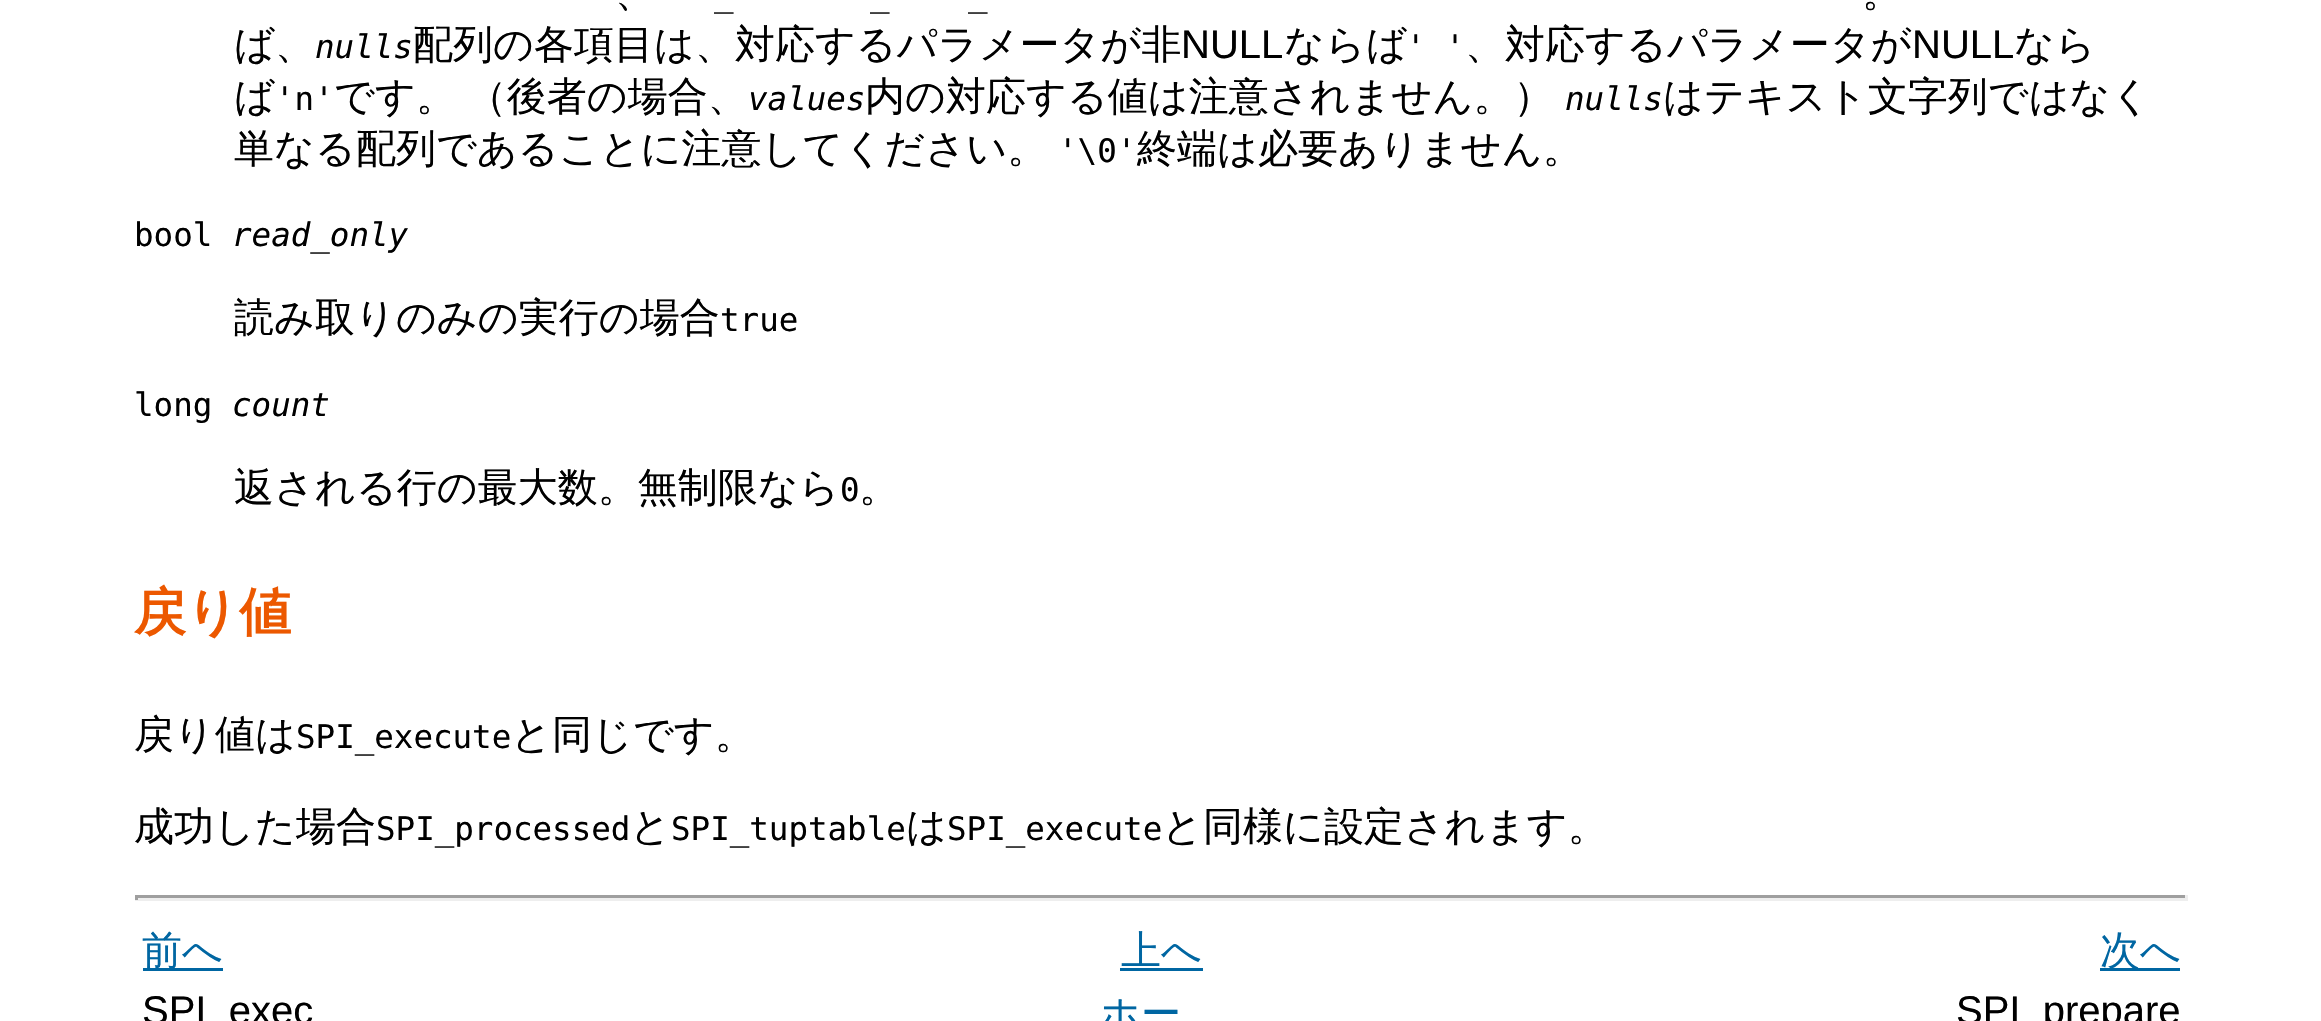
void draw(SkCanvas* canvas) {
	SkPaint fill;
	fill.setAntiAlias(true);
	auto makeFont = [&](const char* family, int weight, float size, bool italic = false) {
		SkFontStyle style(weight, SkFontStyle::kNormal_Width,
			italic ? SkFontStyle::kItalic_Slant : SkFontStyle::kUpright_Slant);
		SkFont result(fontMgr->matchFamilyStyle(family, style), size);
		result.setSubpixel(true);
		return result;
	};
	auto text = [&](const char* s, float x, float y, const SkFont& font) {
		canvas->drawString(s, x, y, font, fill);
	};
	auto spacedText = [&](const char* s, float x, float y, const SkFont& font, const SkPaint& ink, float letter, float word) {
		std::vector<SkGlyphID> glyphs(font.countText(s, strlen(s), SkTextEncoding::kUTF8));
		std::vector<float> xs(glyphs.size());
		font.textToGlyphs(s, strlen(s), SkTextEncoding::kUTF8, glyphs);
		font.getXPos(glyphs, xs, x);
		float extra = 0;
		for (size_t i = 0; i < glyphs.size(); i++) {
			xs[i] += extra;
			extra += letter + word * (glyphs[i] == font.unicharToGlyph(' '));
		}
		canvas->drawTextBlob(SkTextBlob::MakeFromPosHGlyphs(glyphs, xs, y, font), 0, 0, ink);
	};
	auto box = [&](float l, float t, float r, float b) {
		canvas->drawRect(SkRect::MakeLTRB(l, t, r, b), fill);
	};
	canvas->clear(0xFFFFFFFF);
	fill.setColor(0xFF9F9F9F);
	box(135, 895, 2188, 898);
	fill.setColor(0xFFEEEEEE);
	box(2185, 895, 2188, 900);
	box(135, 898, 2188, 901);
	fill.setColor(0xFF9F9F9F);
	box(135, 895, 138, 900);
	fill.setColor(0xFF0066A2);
	box(143, 968, 223, 971);
	box(1120, 968, 1203, 971);
	box(2100, 968, 2180, 971);
	auto font1 = makeFont("WenQuanYi Zen Hei", 500, 40);
	fill.setColor(0xFF000000);
	text("、", 615, 6, font1);
	spacedText("。", 1862, 6, font1, fill, 0, -1);
	auto font2 = makeFont("DejaVu Sans Mono", 400, 32.5f);
	text("_", 714, 6, font2);
	text("_", 870, 6, font2);
	text("_", 968, 6, font2);
	text("ば、", 234, 58, font1);
	auto font3 = makeFont("DejaVu Sans Mono", 400, 32.5f, true);
	text("nulls", 315, 58, font3);
	text("配列の各項目は、対応するパラメータが非", 413, 58, font1);
	auto font4 = makeFont("Liberation Sans", 400, 40);
	text("NULL", 1181, 58, font4);
	text("ならば", 1284, 58, font1);
	text("' '", 1406, 58, font2);
	text("、対応するパラメータが", 1465, 58, font1);
	text("NULL", 1912, 58, font4);
	text("なら", 2014, 58, font1);
	text("ば", 234, 110, font1);
	text("'n'", 275, 110, font2);
	spacedText("です。 （後者の場合、", 334, 110, font1, fill, 0, -1);
	text("values", 748, 110, font3);
	text("内の対応する値は注意されません。）", 865, 110, font1);
	text("nulls", 1565, 110, font3);
	text("はテキスト文字列ではなく", 1663, 110, font1);
	text("単なる配列であることに注意してください。", 234, 162, font1);
	text("'\\0'", 1058, 162, font2);
	text("終端は必要ありません。", 1137, 162, font1);
	text("bool", 134, 246, font2);
	text("read_only", 232, 246, font3);
	text("読み取りのみの実行の場合", 234, 331, font1);
	text("true", 720, 331, font2);
	text("long", 134, 416, font2);
	text("count", 232, 416, font3);
	text("返される行の最大数。無制限なら", 234, 501, font1);
	text("0", 840, 501, font2);
	text("。", 859, 501, font1);
	auto font5 = makeFont("WenQuanYi Zen Hei", 700, 52);
	fill.setColor(0xFFEC5800);
	text("戻り値", 134, 630, font5);
	fill.setColor(0xFF000000);
	text("戻り値は", 134, 748, font1);
	text("SPI_execute", 296, 748, font2);
	text("と同じです。", 511, 748, font1);
	text("成功した場合", 134, 840, font1);
	text("SPI_processed", 376, 840, font2);
	text("と", 630, 840, font1);
	text("SPI_tuptable", 671, 840, font2);
	text("は", 906, 840, font1);
	text("SPI_execute", 947, 840, font2);
	text("と同様に設定されます。", 1162, 840, font1);
	fill.setColor(0xFF0066A2);
	text("前へ", 142, 964, font1);
	text("上へ", 1121, 964, font1);
	text("次へ", 2100, 964, font1);
	fill.setColor(0xFF000000);
	text("SPI_exec", 142, 1024, font4);
	fill.setColor(0xFF0066A2);
	text("ホー", 1100, 1027, font1);
	fill.setColor(0xFF000000);
	text("SPI_prepare", 1956, 1024, font4);
}
